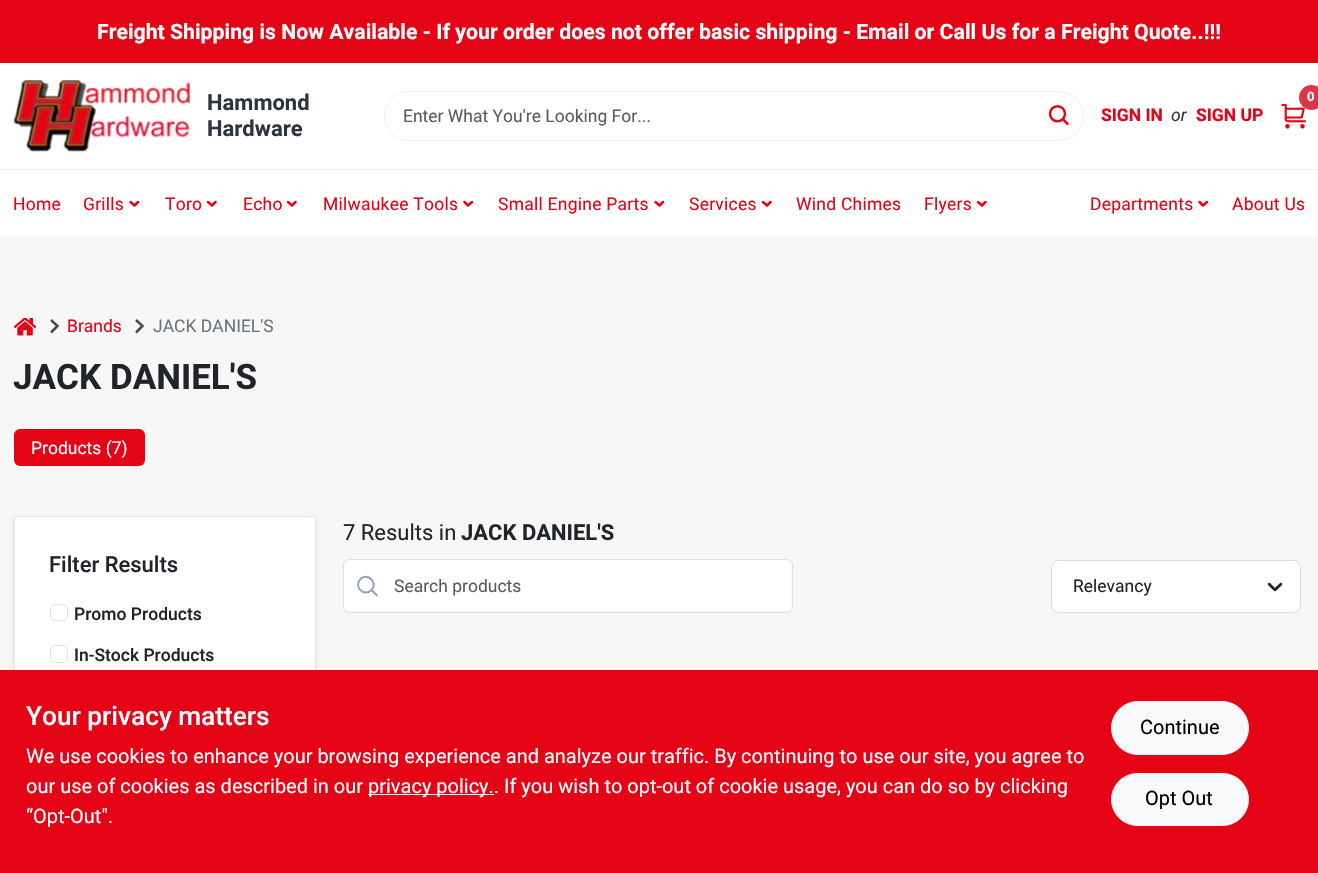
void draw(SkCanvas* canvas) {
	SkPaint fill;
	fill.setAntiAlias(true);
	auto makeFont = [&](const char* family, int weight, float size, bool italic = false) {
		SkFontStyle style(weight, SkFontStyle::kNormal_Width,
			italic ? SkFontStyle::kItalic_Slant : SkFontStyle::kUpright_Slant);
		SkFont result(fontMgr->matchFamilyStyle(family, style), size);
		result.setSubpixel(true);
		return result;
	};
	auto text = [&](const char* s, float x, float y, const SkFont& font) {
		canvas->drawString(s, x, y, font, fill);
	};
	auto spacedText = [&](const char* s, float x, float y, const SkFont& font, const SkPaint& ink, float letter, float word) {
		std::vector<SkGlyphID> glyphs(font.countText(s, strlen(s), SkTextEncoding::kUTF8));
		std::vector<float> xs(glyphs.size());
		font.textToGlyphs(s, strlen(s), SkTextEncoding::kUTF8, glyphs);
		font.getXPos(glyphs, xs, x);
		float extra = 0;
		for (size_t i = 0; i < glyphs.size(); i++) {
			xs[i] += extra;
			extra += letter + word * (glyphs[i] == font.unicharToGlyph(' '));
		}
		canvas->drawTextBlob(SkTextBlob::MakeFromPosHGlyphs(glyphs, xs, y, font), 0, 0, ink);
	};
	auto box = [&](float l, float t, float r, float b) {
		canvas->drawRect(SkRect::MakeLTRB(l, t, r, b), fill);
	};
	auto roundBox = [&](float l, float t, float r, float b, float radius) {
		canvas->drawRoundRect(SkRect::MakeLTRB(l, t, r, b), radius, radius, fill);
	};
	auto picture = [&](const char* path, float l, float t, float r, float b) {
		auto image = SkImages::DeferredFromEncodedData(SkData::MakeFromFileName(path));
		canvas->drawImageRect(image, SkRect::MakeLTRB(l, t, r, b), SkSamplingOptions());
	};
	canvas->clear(0xFFF7F7F7);
	fill.setColor(0xFFE40416);
	box(0, 0, 1318, 63);
	fill.setColor(0xFFFFFFFF);
	box(0, 63, 1318, 169);
	picture("image0.png", 13, 80, 190, 152);
	fill.setStyle(SkPaint::kStroke_Style);
	fill.setStrokeWidth(1);
	fill.setColor(0xFFF0F0F0);
	canvas->drawRoundRect(SkRect::MakeLTRB(384.5f, 91.5f, 1083.5f, 140.5f), 24.5f, 24.5f, fill);
	picture("image1.png", 1048, 105, 1069, 125);
	picture("image2.png", 1281, 104, 1306, 129);
	fill.setStyle(SkPaint::kFill_Style);
	fill.setColor(0xFFDC3545);
	canvas->drawCircle(1311.5f, 97.5f, 12.5f, fill);
	fill.setColor(0xFFFFFFFF);
	box(0, 170, 1318, 236);
	fill.setColor(0xFFEDEDED);
	box(0, 169, 1318, 170);
	fill.setStyle(SkPaint::kStroke_Style);
	fill.setStrokeWidth(2.5f);
	fill.setStrokeCap(SkPaint::kRound_Cap);
	fill.setStrokeJoin(SkPaint::kRound_Join);
	fill.setColor(0xFFE40416);
	canvas->drawPath(SkPathBuilder().moveTo(138, 202).lineTo(134.5f, 205.5f).lineTo(130.5f, 202).detach(), fill);
	canvas->drawPath(SkPathBuilder().moveTo(215.5f, 202).lineTo(212, 205.5f).lineTo(208, 202).detach(), fill);
	canvas->drawPath(SkPathBuilder().moveTo(295.5f, 202).lineTo(292, 205.5f).lineTo(288, 202).detach(), fill);
	canvas->drawPath(SkPathBuilder().moveTo(472, 202).lineTo(468, 205.5f).lineTo(464.5f, 202).detach(), fill);
	canvas->drawPath(SkPathBuilder().moveTo(663, 202).lineTo(659.5f, 205.5f).lineTo(655.5f, 202).detach(), fill);
	canvas->drawPath(SkPathBuilder().moveTo(770.5f, 202).lineTo(767, 205.5f).lineTo(763, 202).detach(), fill);
	canvas->drawPath(SkPathBuilder().moveTo(985.5f, 202).lineTo(982, 205.5f).lineTo(978, 202).detach(), fill);
	canvas->drawPath(SkPathBuilder().moveTo(1207, 202).lineTo(1203, 205.5f).lineTo(1199.5f, 202).detach(), fill);
	picture("image3.png", 14, 318, 36, 336);
	fill.setStrokeCap(SkPaint::kButt_Cap);
	fill.setStrokeJoin(SkPaint::kMiter_Join);
	fill.setColor(0xFF494949);
	canvas->drawPath(SkPathBuilder().moveTo(51, 320).lineTo(57.5f, 326).lineTo(51, 332.5f).detach(), fill);
	canvas->drawPath(SkPathBuilder().moveTo(136, 320).lineTo(142.5f, 326).lineTo(136, 332.5f).detach(), fill);
	fill.setStyle(SkPaint::kFill_Style);
	fill.setColor(0xFFE40416);
	roundBox(14, 429, 145, 466, 6);
	fill.setColor(0x1A000000);
	fill.setMaskFilter(SkMaskFilter::MakeBlur(kNormal_SkBlurStyle, 2));
	canvas->drawRect(SkRect::MakeLTRB(14, 518, 316, 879), fill);
	fill.setMaskFilter(nullptr);
	fill.setColor(0xFFFFFFFF);
	box(15, 517, 315, 670);
	fill.setStyle(SkPaint::kStroke_Style);
	fill.setStrokeWidth(1);
	fill.setColor(0xFFE2E8F0);
	canvas->drawRect(SkRect::MakeLTRB(14.5f, 516.5f, 315.5f, 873.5f), fill);
	fill.setColor(0xFFDEE2E6);
	canvas->drawRoundRect(SkRect::MakeLTRB(50.5f, 604.5f, 67.5f, 620.5f), 4.5f, 4.5f, fill);
	canvas->drawRoundRect(SkRect::MakeLTRB(50.5f, 645.5f, 67.5f, 662.5f), 4.5f, 4.5f, fill);
	fill.setStyle(SkPaint::kFill_Style);
	fill.setColor(0xFFFFFFFF);
	roundBox(344, 560, 791, 611, 5);
	fill.setStyle(SkPaint::kStroke_Style);
	fill.setStrokeWidth(1.9f);
	fill.setStrokeCap(SkPaint::kRound_Cap);
	fill.setStrokeJoin(SkPaint::kRound_Join);
	fill.setColor(0xFF94A3B8);
	canvas->drawPath(SkPathBuilder().moveTo(377, 595.5f).lineTo(371.5f, 590).moveTo(371.5f, 590).cubicTo(378.5f, 583, 367.5f, 572, 360.5f, 579).cubicTo(353, 586.5f, 364, 597.5f, 371.5f, 590).close().detach(), fill);
	fill.setStrokeWidth(1);
	fill.setStrokeCap(SkPaint::kButt_Cap);
	fill.setStrokeJoin(SkPaint::kMiter_Join);
	fill.setColor(0xFFDEE2E6);
	canvas->drawRoundRect(SkRect::MakeLTRB(343.5f, 559.5f, 792.5f, 612.5f), 5.5f, 5.5f, fill);
	fill.setStyle(SkPaint::kFill_Style);
	fill.setColor(0xFFFFFFFF);
	canvas->drawRoundRect(SkRect::MakeLTRB(1051.5f, 560.5f, 1300.5f, 612.5f), 7.5f, 7.5f, fill);
	fill.setStyle(SkPaint::kStroke_Style);
	fill.setColor(0xFFD8DBDF);
	canvas->drawRoundRect(SkRect::MakeLTRB(1051.5f, 560.5f, 1300.5f, 612.5f), 7.5f, 7.5f, fill);
	picture("image4.png", 1267, 582, 1283, 592);
	fill.setStyle(SkPaint::kFill_Style);
	fill.setColor(0xFFE40416);
	box(0, 670, 1318, 873);
	fill.setColor(0xFFFFFFFF);
	box(368, 794, 494, 795);
	fill.setColor(0xFFF8F9FA);
	canvas->drawRoundRect(SkRect::MakeLTRB(1111.5f, 701.5f, 1248.5f, 754.5f), 26.5f, 26.5f, fill);
	fill.setStyle(SkPaint::kStroke_Style);
	canvas->drawRoundRect(SkRect::MakeLTRB(1111.5f, 701.5f, 1248.5f, 754.5f), 26.5f, 26.5f, fill);
	fill.setStyle(SkPaint::kFill_Style);
	canvas->drawRoundRect(SkRect::MakeLTRB(1111.5f, 773.5f, 1248.5f, 825.5f), 26, 26, fill);
	fill.setStyle(SkPaint::kStroke_Style);
	canvas->drawRoundRect(SkRect::MakeLTRB(1111.5f, 773.5f, 1248.5f, 825.5f), 26, 26, fill);
	auto font1 = makeFont("Roboto", 700, 21.25f);
	fill.setStyle(SkPaint::kFill_Style);
	fill.setColor(0xFFFFFFFF);
	text("Freight Shipping is Now Available - If your order does not offer basic shipping - Email or Call Us for a Freight Quote..!!!", 97, 39, font1);
	auto font2 = makeFont("Roboto", 700, 22);
	fill.setColor(0xFF2F3540);
	text("Hammond", 207, 110, font2);
	text("Hardware", 207, 136, font2);
	auto font3 = makeFont("Roboto", 400, 17.5f);
	fill.setColor(0xFF595C5F);
	text("Enter What You're Looking For...", 403, 122, font3);
	auto font4 = makeFont("Roboto", 700, 13);
	fill.setColor(0xFFFFFFFF);
	spacedText("0", 1307, 101, font4, fill, -1, 0);
	auto font5 = makeFont("Roboto", 700, 17.5f);
	fill.setColor(0xFFE40416);
	text("SIGN IN", 1101, 121, font5);
	auto font6 = makeFont("Roboto", 400, 17.5f, true);
	fill.setColor(0xFF2F3540);
	text("or", 1171, 121, font6);
	fill.setColor(0xFFE40416);
	text("SIGN UP", 1196, 121, font5);
	spacedText("Home", 13, 210, font3, fill, 0.25f, 0);
	spacedText("Grills", 83, 210, font3, fill, 0.25f, 0);
	spacedText("Toro", 165, 210, font3, fill, 0.25f, 0);
	spacedText("Echo", 243, 210, font3, fill, 0.25f, 0);
	spacedText("Milwaukee Tools", 323, 210, font3, fill, 0.25f, 0);
	spacedText("Small Engine Parts", 498, 210, font3, fill, 0.25f, 0);
	spacedText("Services", 689, 210, font3, fill, 0.25f, 0);
	spacedText("Wind Chimes", 796, 210, font3, fill, 0.25f, 0);
	spacedText("Flyers", 924, 210, font3, fill, 0.25f, 0);
	spacedText("Departments", 1090, 210, font3, fill, 0.25f, 0);
	spacedText("About Us", 1232, 210, font3, fill, 0.25f, 0);
	text("Brands", 67, 332, font3);
	fill.setColor(0xFF6C757D);
	text("JACK DANIEL'S", 153, 332, font3);
	auto font7 = makeFont("Roboto", 700, 35);
	fill.setColor(0xFF212529);
	text("JACK DANIEL'S", 13, 389, font7);
	fill.setColor(0xFFFFFFFF);
	text("Products (7)", 31, 454, font3);
	auto font8 = makeFont("Roboto", 500, 22);
	fill.setColor(0xFF212529);
	text("Filter Results", 49, 572, font8);
	auto font9 = makeFont("Roboto", 500, 17.5f);
	text("Promo Products", 74, 620, font9);
	text("In-Stock Products", 74, 661, font9);
	auto font10 = makeFont("Roboto", 400, 22);
	text("7 Results in", 343, 540, font10);
	text("JACK DANIEL'S", 461, 540, font2);
	fill.setColor(0xFF595C5F);
	text("Search products", 394, 592, font3);
	fill.setColor(0xFF212529);
	text("Relevancy", 1073, 592, font3);
	auto font11 = makeFont("Roboto", 500, 26.25f);
	fill.setColor(0xFFFFFFFF);
	text("Your privacy matters", 26, 725, font11);
	auto font12 = makeFont("Roboto", 400, 20);
	text("We use cookies to enhance your browsing experience and analyze our traffic. By continuing to use our site, you agree to", 26, 763, font12);
	text("our use of cookies as described in our", 26, 793, font12);
	text("privacy policy.. If you wish to opt-out of cookie usage, you can do so by clicking", 368, 793, font12);
	text("“Opt-Out\".", 26, 823, font12);
	fill.setColor(0xFF000000);
	text("Continue", 1140, 734, font12);
	text("Opt Out", 1145, 805, font12);
}
